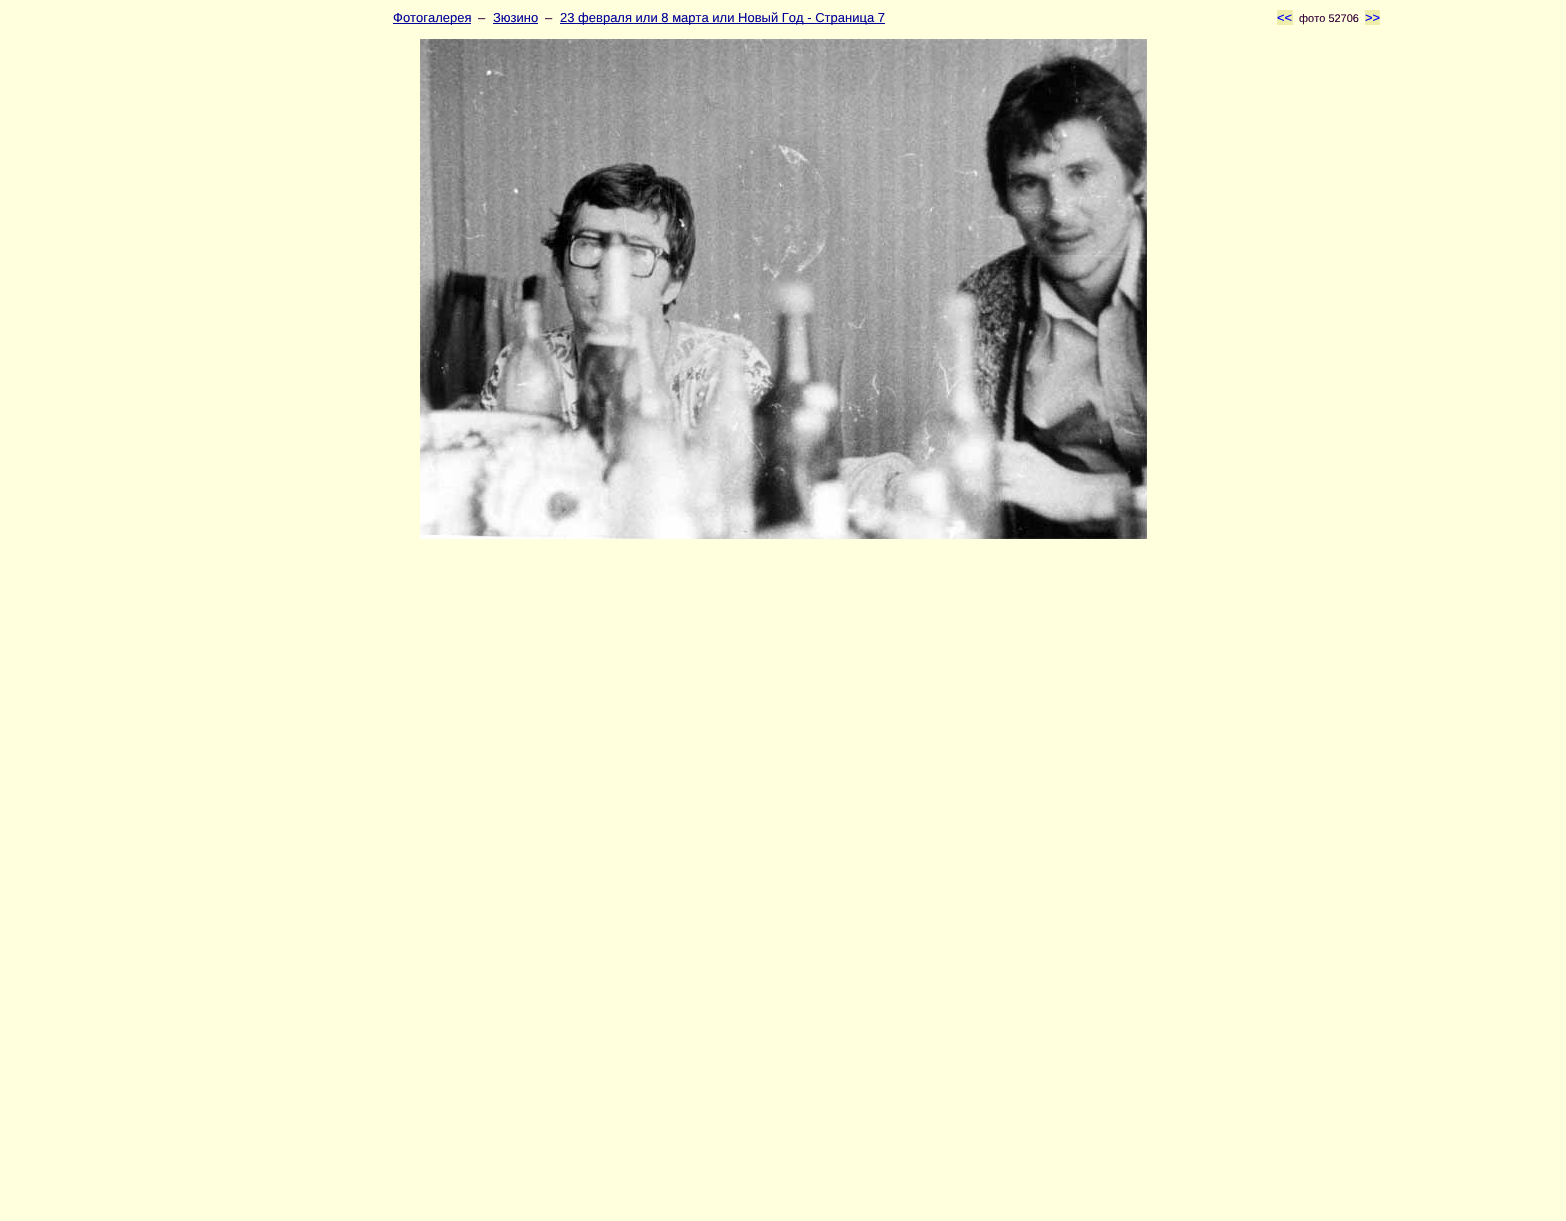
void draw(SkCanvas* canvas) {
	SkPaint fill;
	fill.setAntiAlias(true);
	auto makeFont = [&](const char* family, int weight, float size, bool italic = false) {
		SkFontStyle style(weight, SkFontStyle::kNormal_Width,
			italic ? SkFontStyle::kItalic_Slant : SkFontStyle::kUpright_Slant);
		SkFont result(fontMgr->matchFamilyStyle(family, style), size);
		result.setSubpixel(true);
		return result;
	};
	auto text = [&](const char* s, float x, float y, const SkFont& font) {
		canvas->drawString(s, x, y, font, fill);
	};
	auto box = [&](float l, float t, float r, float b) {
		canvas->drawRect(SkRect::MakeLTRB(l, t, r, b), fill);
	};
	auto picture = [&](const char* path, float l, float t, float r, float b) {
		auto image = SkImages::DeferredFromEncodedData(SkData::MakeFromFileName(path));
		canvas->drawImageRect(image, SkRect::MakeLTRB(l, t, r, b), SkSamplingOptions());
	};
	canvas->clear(0xFFFFFFDD);
	fill.setColor(0xFF000099);
	box(393, 23, 471, 24);
	box(493, 23, 538, 24);
	box(560, 23, 885, 24);
	fill.setColor(0xFFEEEEAA);
	box(1277, 10, 1293, 25);
	box(1365, 10, 1380, 25);
	picture("image0.png", 420, 39, 1147, 539);
	auto font1 = makeFont("Liberation Sans", 400, 13);
	fill.setColor(0xFF000099);
	text("Фотогалерея", 393, 22, font1);
	fill.setColor(0xFF330033);
	text("–", 478, 22, font1);
	fill.setColor(0xFF000099);
	text("Зюзино", 493, 22, font1);
	fill.setColor(0xFF330033);
	text("–", 545, 22, font1);
	fill.setColor(0xFF000099);
	text("23 февраля или 8 марта или Новый Год - Страница 7", 560, 22, font1);
	fill.setColor(0xFF0000FF);
	text("<<", 1277, 22, font1);
	auto font2 = makeFont("Liberation Sans", 400, 11);
	fill.setColor(0xFF330033);
	text("фото 52706", 1299, 22, font2);
	fill.setColor(0xFF0000FF);
	text(">>", 1365, 22, font1);
}
